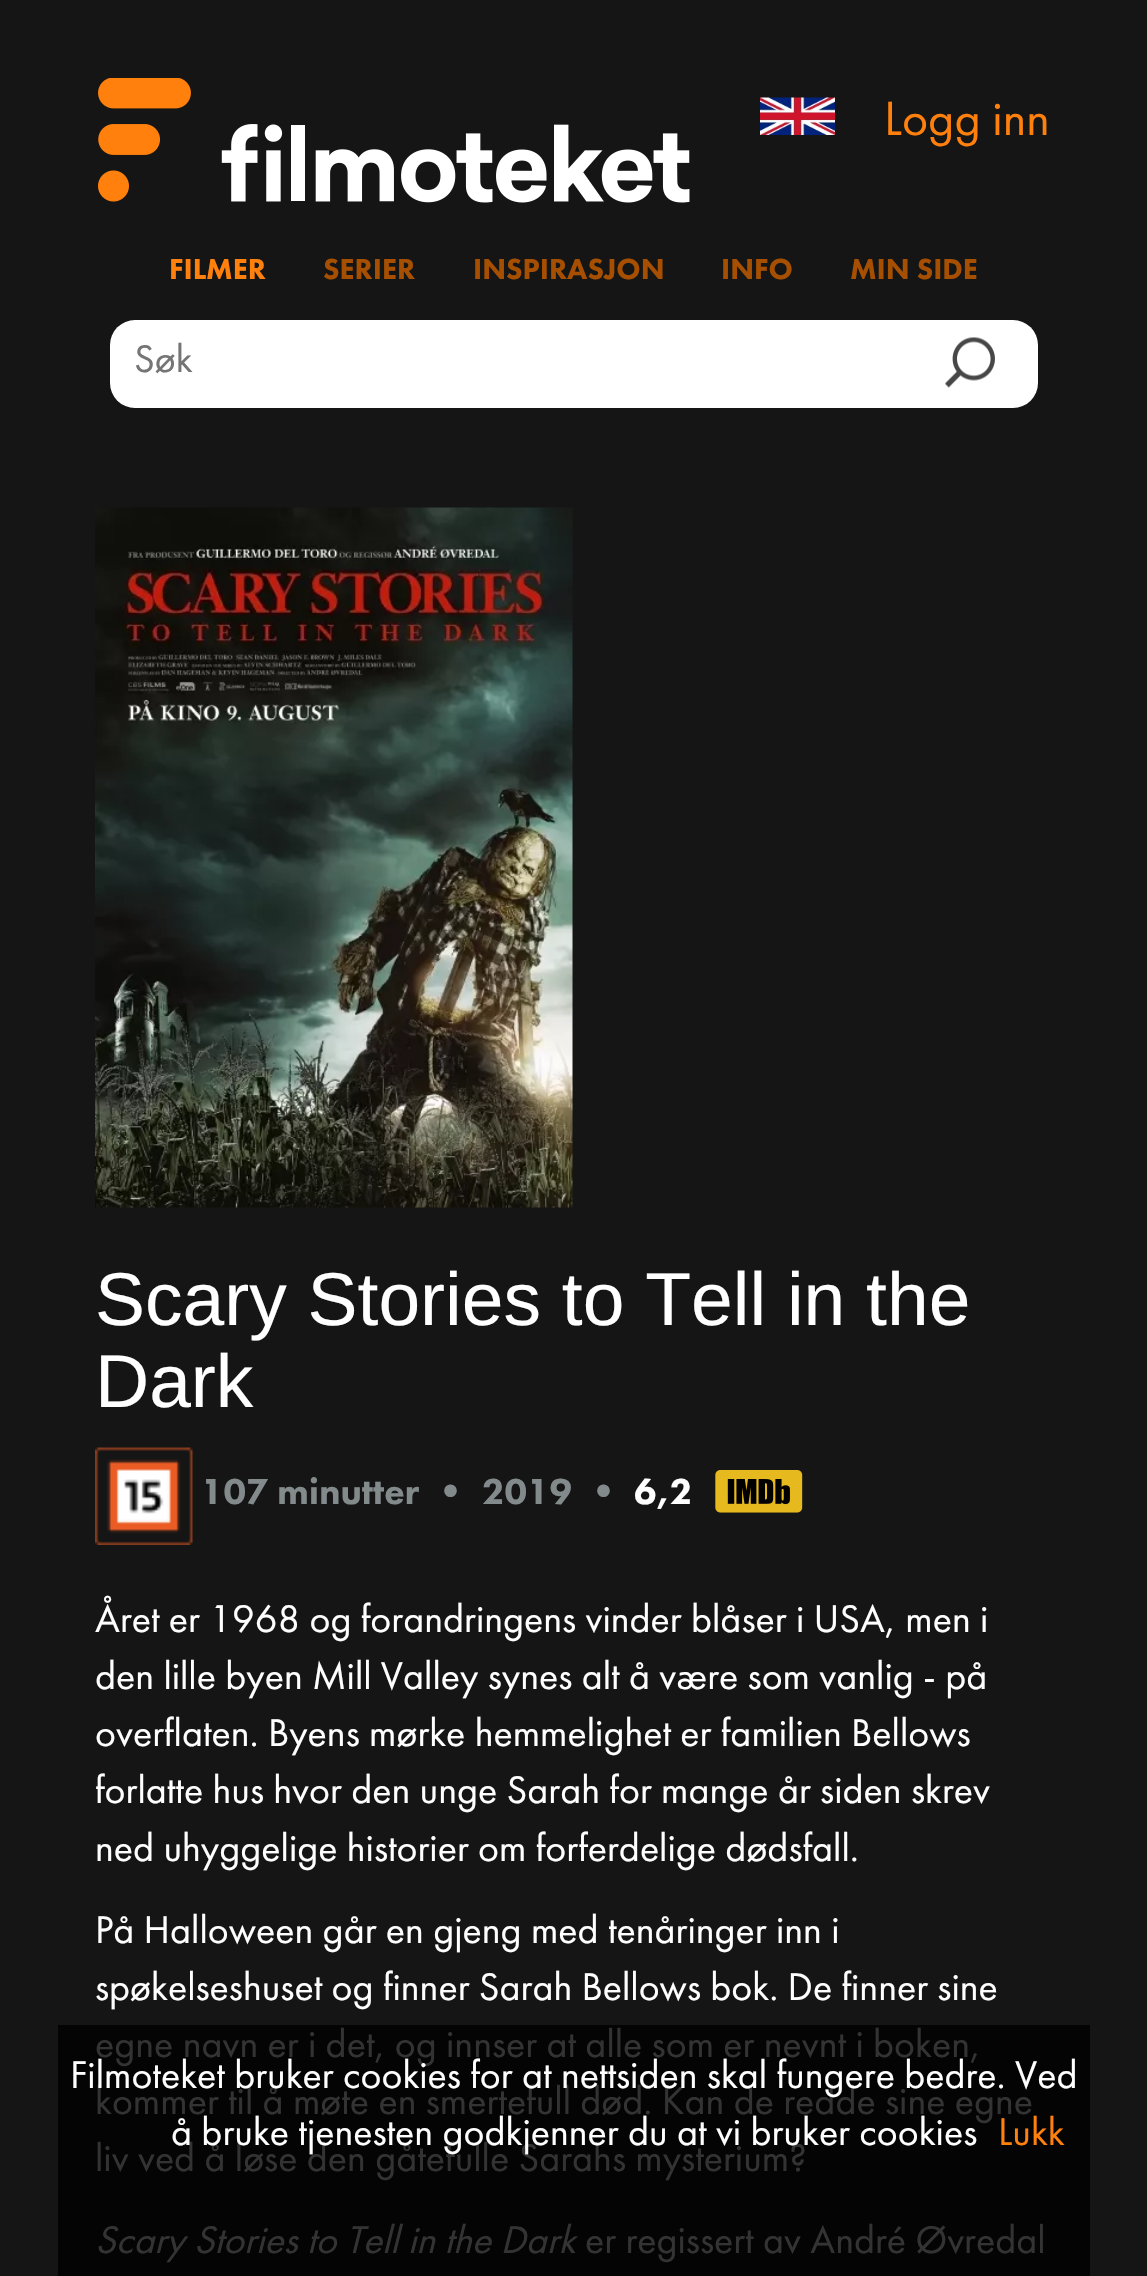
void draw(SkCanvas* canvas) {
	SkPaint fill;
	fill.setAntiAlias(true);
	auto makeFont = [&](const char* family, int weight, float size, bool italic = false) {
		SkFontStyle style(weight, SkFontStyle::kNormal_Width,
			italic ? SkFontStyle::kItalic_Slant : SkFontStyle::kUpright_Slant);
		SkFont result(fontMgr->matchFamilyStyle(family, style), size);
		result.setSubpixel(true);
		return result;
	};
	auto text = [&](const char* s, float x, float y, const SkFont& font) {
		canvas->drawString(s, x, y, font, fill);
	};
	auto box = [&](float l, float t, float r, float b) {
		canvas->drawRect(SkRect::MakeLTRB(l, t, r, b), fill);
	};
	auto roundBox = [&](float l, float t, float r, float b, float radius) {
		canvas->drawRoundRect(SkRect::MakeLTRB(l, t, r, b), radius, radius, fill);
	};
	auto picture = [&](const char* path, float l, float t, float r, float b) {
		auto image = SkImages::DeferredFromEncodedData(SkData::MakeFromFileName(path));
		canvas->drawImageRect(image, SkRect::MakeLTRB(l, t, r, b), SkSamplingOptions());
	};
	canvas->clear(0xFF151515);
	fill.setColor(0xFF040404);
	box(58, 2025, 1090, 2276);
	picture("image0.png", 98, 78, 690, 203);
	picture("image1.png", 760, 97, 835, 135);
	fill.setColor(0xFFFFFFFF);
	roundBox(110, 320, 1038, 408, 25);
	picture("image2.png", 945, 337, 995, 388);
	picture("image3.png", 95, 507, 573, 1208);
	picture("image4.png", 95, 1447, 193, 1545);
	picture("image5.png", 715, 1470, 803, 1513);
	auto font1 = makeFont("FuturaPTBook", 400, 50);
	fill.setColor(0xFFFF800D);
	text("Logg inn", 884, 135, font1);
	auto font2 = makeFont("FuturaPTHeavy", 400, 30);
	text("FILMER", 169, 279, font2);
	fill.setColor(0xFFA64F00);
	text("SERIER", 323, 279, font2);
	text("INSPIRASJON", 473, 279, font2);
	text("INFO", 721, 279, font2);
	text("MIN SIDE", 850, 279, font2);
	auto font3 = makeFont("FuturaPTBook", 400, 40);
	fill.setColor(0xFF757575);
	text("Søk", 134, 372, font3);
	auto font4 = makeFont("Liberation Sans", 400, 75);
	fill.setColor(0xFFFFFFFF);
	text("Scary Stories to Tell in the", 95, 1325, font4);
	text("Dark", 95, 1407, font4);
	auto font5 = makeFont("FuturaPTHeavy", 400, 37.5f);
	fill.setColor(0xFF828A8C);
	text("107 minutter", 201, 1504, font5);
	auto font6 = makeFont("FuturaPTHeavy", 400, 45);
	text("•", 428, 1506, font6);
	text("2019", 482, 1504, font5);
	text("•", 581, 1506, font6);
	fill.setColor(0xFFFFFFFF);
	text("6,2", 634, 1504, font5);
	text("Året er 1968 og forandringens vinder blåser i USA, men i", 95, 1632, font3);
	text("den lille byen Mill Valley synes alt å være som vanlig - på", 95, 1689, font3);
	text("overflaten. Byens mørke hemmelighet er familien Bellows", 95, 1746, font3);
	text("forlatte hus hvor den unge Sarah for mange år siden skrev", 95, 1803, font3);
	text("ned uhyggelige historier om forferdelige dødsfall.", 95, 1861, font3);
	text("På Halloween går en gjeng med tenåringer inn i", 95, 1943, font3);
	text("spøkelseshuset og finner Sarah Bellows bok. De finner sine", 95, 2000, font3);
	fill.setColor(0xFF333333);
	text("egne navn er i det, og innser at alle som er nevnt i boken,", 95, 2057, font3);
	text("kommer til å møte en smertefull død. Kan de redde sine egne", 95, 2114, font3);
	text("liv ved å løse den gåtefulle Sarahs mysterium?", 95, 2171, font3);
	auto font7 = makeFont("FuturaPTBook", 400, 40, true);
	text("Scary Stories to Tell in the Dark", 95, 2253, font7);
	text("er regissert av André Øvredal", 585, 2253, font3);
	fill.setColor(0xFFFFFFFF);
	text("Filmoteket bruker cookies for at nettsiden skal fungere bedre. Ved", 70, 2088, font3);
	text("å bruke tjenesten godkjenner du at vi bruker cookies", 171, 2145, font3);
	fill.setColor(0xFFFF800D);
	text("Lukk", 998, 2145, font3);
}
